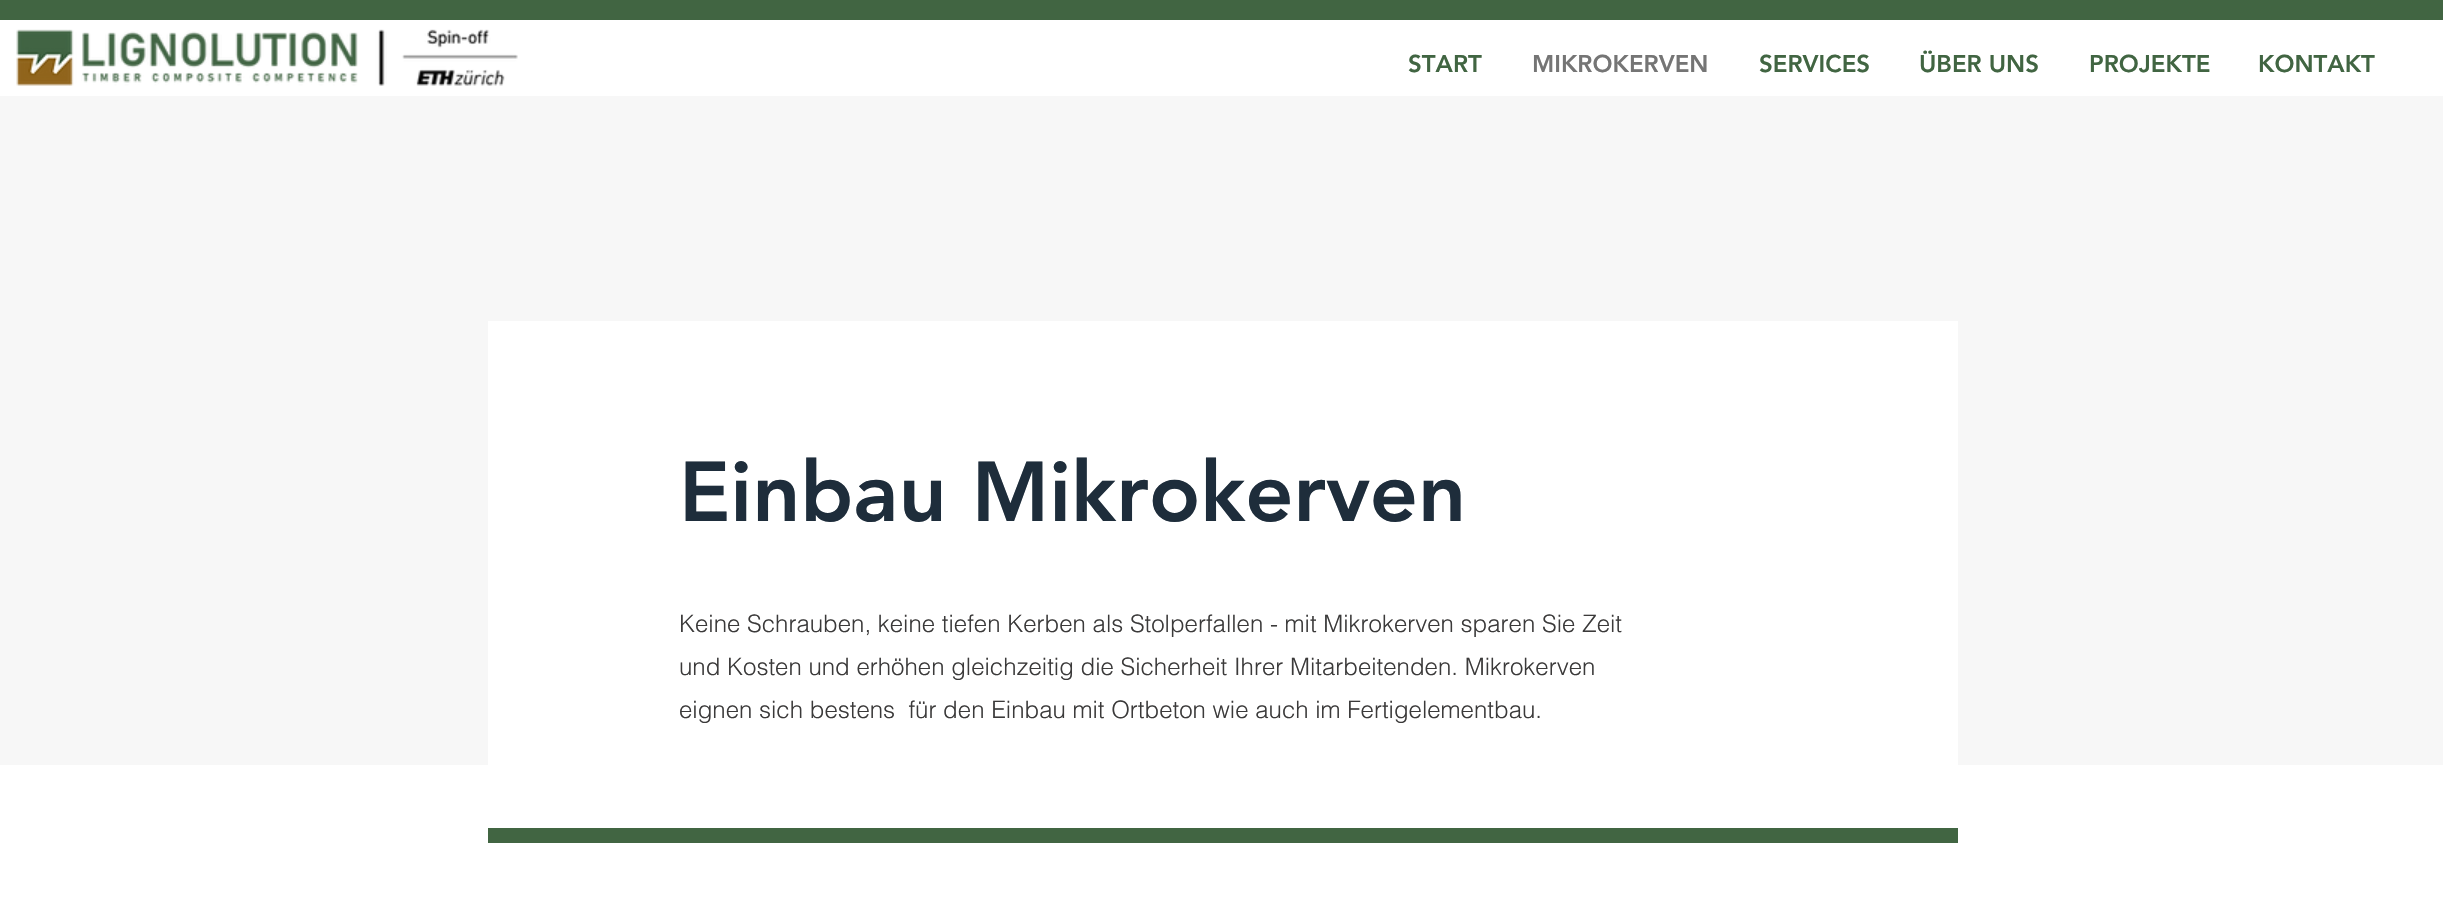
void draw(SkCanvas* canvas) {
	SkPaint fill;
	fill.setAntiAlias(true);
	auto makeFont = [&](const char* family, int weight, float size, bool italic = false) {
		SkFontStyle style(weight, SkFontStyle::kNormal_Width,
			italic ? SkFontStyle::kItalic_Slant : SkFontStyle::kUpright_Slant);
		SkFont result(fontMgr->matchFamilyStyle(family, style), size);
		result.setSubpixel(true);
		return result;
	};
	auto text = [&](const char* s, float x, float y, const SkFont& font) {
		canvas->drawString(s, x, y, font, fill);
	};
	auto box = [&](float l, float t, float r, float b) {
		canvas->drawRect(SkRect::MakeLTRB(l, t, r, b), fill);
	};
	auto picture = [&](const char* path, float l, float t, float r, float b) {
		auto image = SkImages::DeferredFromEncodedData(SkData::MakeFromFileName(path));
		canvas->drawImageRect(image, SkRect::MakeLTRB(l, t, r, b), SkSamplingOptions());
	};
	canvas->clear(0xFFFFFFFF);
	fill.setColor(0xFF416542);
	box(0, 0, 2443, 20);
	picture("image0.png", 16, 29, 518, 86);
	fill.setColor(0xFFF7F7F7);
	box(0, 96, 2443, 765);
	fill.setColor(0xFFFFFFFF);
	box(488, 321, 1958, 765);
	fill.setColor(0xFF416542);
	box(488, 828, 1958, 843);
	auto font1 = makeFont("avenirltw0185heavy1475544", 900, 24);
	text("START", 1408, 72, font1);
	fill.setColor(0xFF757575);
	text("MIKROKERVEN", 1532, 72, font1);
	fill.setColor(0xFF416542);
	text("SERVICES", 1759, 72, font1);
	text("ÜBER UNS", 1919, 72, font1);
	text("PROJEKTE", 2089, 72, font1);
	text("KONTAKT", 2258, 72, font1);
	auto font2 = makeFont("avenirltw0185heavy1475544", 900, 84);
	fill.setColor(0xFF1E2D3B);
	text("Einbau Mikrokerven", 679, 521, font2);
	auto font3 = makeFont("helvetica", 300, 24);
	fill.setColor(0xFF3B3A3A);
	text("Keine Schrauben, keine tiefen Kerben als Stolperfallen - mit Mikrokerven sparen Sie Zeit", 679, 632, font3);
	text("und Kosten und erhöhen gleichzeitig die Sicherheit Ihrer Mitarbeitenden. Mikrokerven", 679, 675, font3);
	text("eignen sich bestens  für den Einbau mit Ortbeton wie auch im Fertigelementbau.", 679, 718, font3);
}
